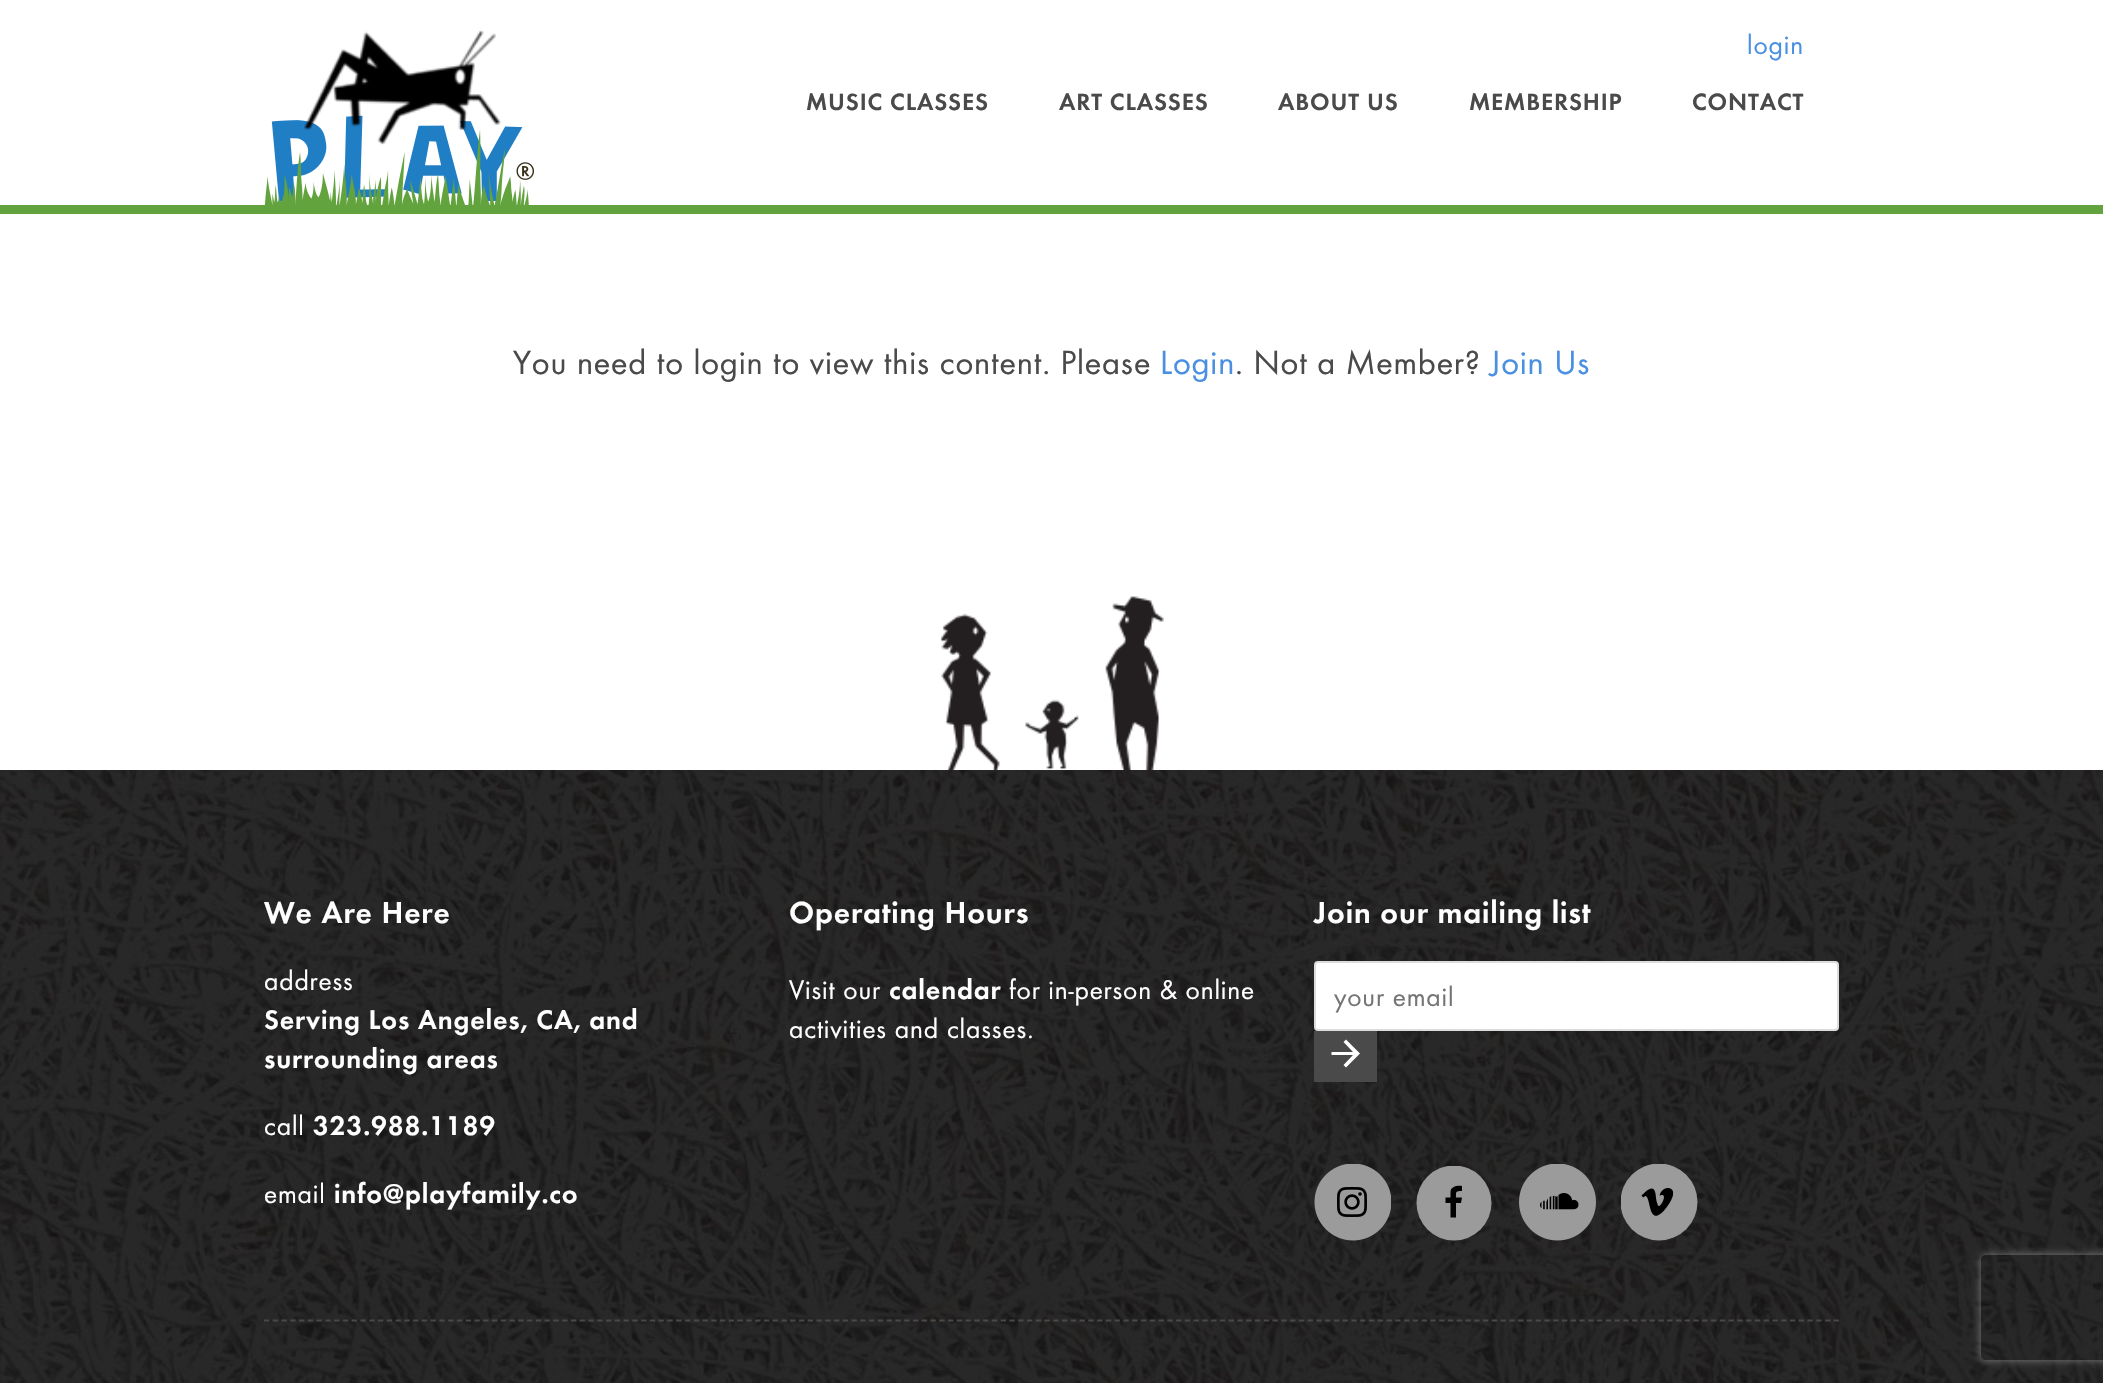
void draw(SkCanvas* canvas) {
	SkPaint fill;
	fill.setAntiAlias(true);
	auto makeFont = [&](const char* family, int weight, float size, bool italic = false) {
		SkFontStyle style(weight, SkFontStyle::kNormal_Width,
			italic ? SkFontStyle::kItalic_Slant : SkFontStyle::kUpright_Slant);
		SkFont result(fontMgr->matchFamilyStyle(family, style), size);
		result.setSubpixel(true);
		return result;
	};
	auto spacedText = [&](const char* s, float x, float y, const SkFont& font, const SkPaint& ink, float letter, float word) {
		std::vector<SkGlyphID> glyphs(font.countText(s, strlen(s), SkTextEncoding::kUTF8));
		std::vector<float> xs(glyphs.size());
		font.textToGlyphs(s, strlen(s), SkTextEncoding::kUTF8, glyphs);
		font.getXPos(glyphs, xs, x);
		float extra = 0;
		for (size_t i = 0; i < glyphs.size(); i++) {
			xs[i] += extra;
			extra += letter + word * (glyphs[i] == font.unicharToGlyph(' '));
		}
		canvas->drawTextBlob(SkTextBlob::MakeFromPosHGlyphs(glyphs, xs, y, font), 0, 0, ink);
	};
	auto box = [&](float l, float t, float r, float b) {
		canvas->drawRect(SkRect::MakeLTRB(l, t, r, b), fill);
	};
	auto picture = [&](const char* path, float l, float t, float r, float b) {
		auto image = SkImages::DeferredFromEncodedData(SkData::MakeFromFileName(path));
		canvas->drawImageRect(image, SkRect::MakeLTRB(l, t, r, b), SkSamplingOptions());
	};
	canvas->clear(0xFFFFFFFF);
	fill.setColor(0xFF62A33E);
	box(0, 205, 2103, 214);
	picture("image1.png", 264, 115, 534, 205);
	picture("image0.png", 304, 30, 501, 145);
	picture("image2.png", 0, 770, 2103, 1383);
	picture("image3.png", 940, 596, 1164, 784);
	fill.setColor(0xFFFFFFFF);
	canvas->drawRoundRect(SkRect::MakeLTRB(1315, 962, 1838, 1030), 3, 3, fill);
	fill.setStyle(SkPaint::kStroke_Style);
	fill.setStrokeWidth(2);
	fill.setColor(0xFFDCDCDC);
	canvas->drawRoundRect(SkRect::MakeLTRB(1315, 962, 1838, 1030), 3, 3, fill);
	fill.setStyle(SkPaint::kFill_Style);
	fill.setColor(0xFF4A4A4A);
	box(1314, 1031, 1377, 1082);
	fill.setColor(0xFFFFFFFF);
	canvas->drawPath(SkPathBuilder().moveTo(1346, 1039.5f).lineTo(1360, 1053.5f).lineTo(1346, 1067.5f).lineTo(1343.5f, 1065).lineTo(1353, 1055).lineTo(1331.5f, 1055).lineTo(1331.5f, 1052).lineTo(1353, 1052).lineTo(1343.5f, 1042).close().detach(), fill);
	picture("image4.png", 1314, 1164, 1391, 1241);
	canvas->save();
	canvas->clipRect(SkRect::MakeLTRB(1416, 1166, 1493, 1241));
	fill.setColor(0xFF9B9B9B);
	canvas->drawCircle(1454, 1203, 37.5f, fill);
	canvas->restore();
	picture("image5.png", 1519, 1164, 1596, 1241);
	canvas->save();
	canvas->clipRect(SkRect::MakeLTRB(1621, 1164, 1698, 1241));
	canvas->drawCircle(1659, 1202, 38.5f, fill);
	canvas->restore();
	fill.setColor(0xFF000000);
	canvas->drawPath(SkPathBuilder(SkPathFillType::kEvenOdd).moveTo(1462, 1186).lineTo(1462, 1191).cubicTo(1455.5f, 1191, 1456, 1191.5f, 1456, 1197.5f).lineTo(1462, 1197.5f).lineTo(1461, 1203).lineTo(1456, 1203).lineTo(1456, 1217.5f).lineTo(1450.5f, 1217.5f).lineTo(1450.5f, 1203).lineTo(1445.5f, 1203).lineTo(1445.5f, 1197.5f).lineTo(1450.5f, 1197.5f).lineTo(1450.5f, 1191.5f).cubicTo(1451.5f, 1186, 1457.5f, 1185.5f, 1462, 1186).close().detach(), fill);
	canvas->drawPath(SkPathBuilder(SkPathFillType::kEvenOdd).moveTo(1673, 1194.5f).cubicTo(1673, 1200, 1660.5f, 1218.5f, 1654.5f, 1215.5f).cubicTo(1649, 1213, 1649.5f, 1196.5f, 1645.5f, 1196).lineTo(1643, 1197.5f).lineTo(1641.5f, 1195.5f).cubicTo(1645.5f, 1192, 1653.5f, 1183, 1655.5f, 1193.5f).cubicTo(1656, 1197, 1656, 1200.5f, 1657.5f, 1204).cubicTo(1657.5f, 1204.5f, 1658, 1206, 1659, 1206).cubicTo(1661.5f, 1206, 1668.5f, 1192, 1659.5f, 1195.5f).cubicTo(1661, 1190.5f, 1664, 1188, 1668.5f, 1188).cubicTo(1672, 1188.5f, 1673.5f, 1190.5f, 1673, 1194.5f).close().detach(), fill);
	fill.setStyle(SkPaint::kStroke_Style);
	fill.setStrokeWidth(1.8f);
	fill.setColor(0xFF4B4846);
	fill.setPathEffect(SkDashPathEffect::Make({{5.25f, 3.52f}}, 0));
	canvas->drawPath(SkPathBuilder().moveTo(264, 1320.5f).lineTo(1839, 1320.5f).detach(), fill);
	fill.setPathEffect(nullptr);
	canvas->save();
	canvas->clipPath(SkPathBuilder(SkPathFillType::kEvenOdd).moveTo(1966, 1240).lineTo(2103, 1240).lineTo(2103, 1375).lineTo(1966, 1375).close().moveTo(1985, 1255).lineTo(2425, 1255).cubicTo(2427, 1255, 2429, 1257, 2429, 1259).lineTo(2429, 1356).cubicTo(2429, 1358, 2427, 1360, 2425, 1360).lineTo(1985, 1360).cubicTo(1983, 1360, 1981, 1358, 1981, 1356).lineTo(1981, 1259).cubicTo(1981, 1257, 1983, 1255, 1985, 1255).close().detach(), true);
	fill.setStyle(SkPaint::kFill_Style);
	fill.setColor(0xFF808080);
	fill.setMaskFilter(SkMaskFilter::MakeBlur(kNormal_SkBlurStyle, 4.5f));
	canvas->drawRoundRect(SkRect::MakeLTRB(1981, 1255, 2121, 1360), 4, 4, fill);
	fill.setMaskFilter(nullptr);
	canvas->restore();
	auto font1 = makeFont("Futura", 400, 28);
	fill.setColor(0xFF4A90E2);
	spacedText("login", 1747, 54, font1, fill, 0.85f, 0);
	auto font2 = makeFont("Futura", 600, 24.5f);
	fill.setColor(0xFF4A4A4A);
	spacedText("MUSIC CLASSES", 806, 110, font2, fill, 0.85f, 0);
	spacedText("ART CLASSES", 1059, 110, font2, fill, 0.85f, 0);
	spacedText("ABOUT US", 1278, 110, font2, fill, 0.85f, 0);
	spacedText("MEMBERSHIP", 1469, 110, font2, fill, 0.85f, 0);
	spacedText("CONTACT", 1692, 110, font2, fill, 0.85f, 0);
	auto font3 = makeFont("Futura", 400, 35);
	spacedText("You need to login to view this content. Please", 513, 374, font3, fill, 0.85f, 0);
	fill.setColor(0xFF4A90E2);
	spacedText("Login", 1160, 374, font3, fill, 0.85f, 0);
	fill.setColor(0xFF4A4A4A);
	spacedText(". Not a Member?", 1235, 374, font3, fill, 0.85f, 0);
	fill.setColor(0xFF4A90E2);
	spacedText("Join Us", 1490, 374, font3, fill, 0.85f, 0);
	auto font4 = makeFont("Futura", 600, 31.5f);
	fill.setColor(0xFFFFFFFF);
	spacedText("We Are Here", 264, 923, font4, fill, 0.85f, 0);
	spacedText("address", 264, 990, font1, fill, 0.85f, 0);
	auto font5 = makeFont("Futura", 600, 28);
	spacedText("Serving Los Angeles, CA, and", 264, 1029, font5, fill, 0.85f, 0);
	spacedText("surrounding areas", 264, 1068, font5, fill, 0.85f, 0);
	spacedText("call", 264, 1135, font1, fill, 0.85f, 0);
	spacedText("323.988.1189", 313, 1135, font5, fill, 0.85f, 0);
	spacedText("email", 264, 1203, font1, fill, 0.85f, 0);
	spacedText("info@playfamily.co", 334, 1203, font5, fill, 0.85f, 0);
	spacedText("Operating Hours", 789, 923, font4, fill, 0.85f, 0);
	spacedText("Visit our", 789, 999, font1, fill, 0.85f, 0);
	spacedText("calendar", 889, 999, font5, fill, 0.85f, 0);
	spacedText("for in-person & online", 1009, 999, font1, fill, 0.85f, 0);
	spacedText("activities and classes.", 789, 1038, font1, fill, 0.85f, 0);
	spacedText("Join our mailing list", 1314, 923, font4, fill, 0.85f, 0);
	fill.setColor(0xFF757575);
	spacedText("your email", 1334, 1006, font1, fill, 0.85f, 0);
}
